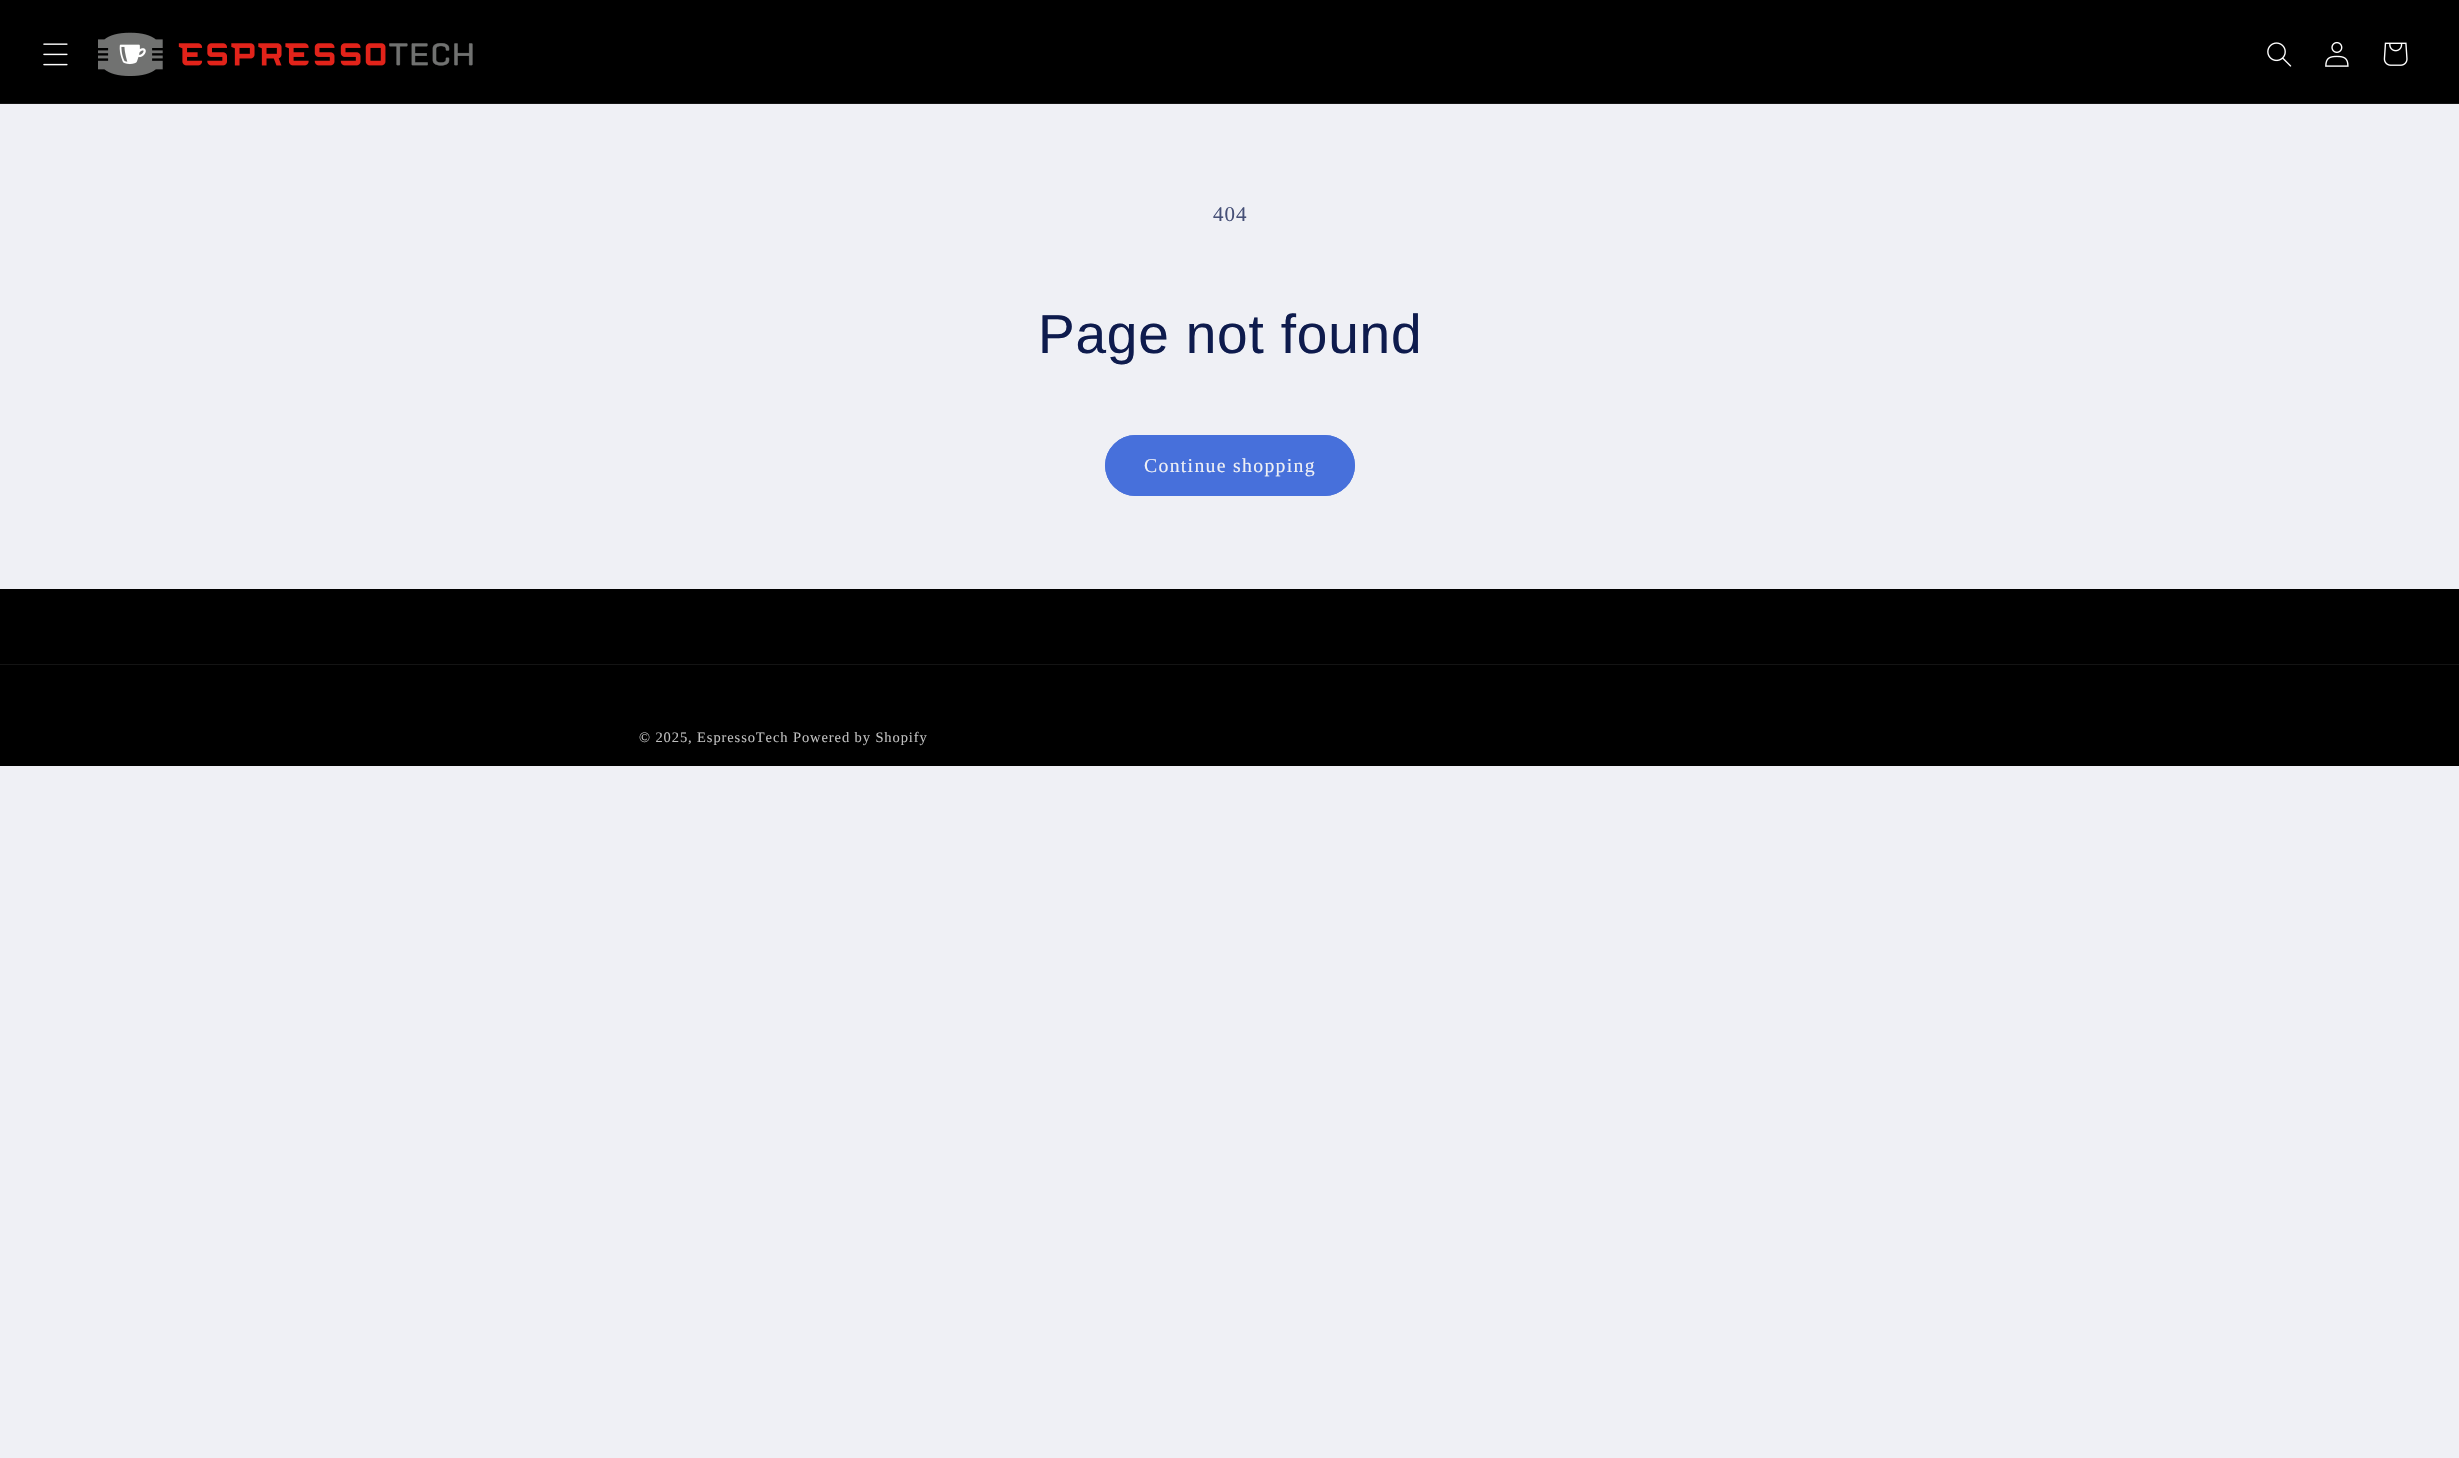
void draw(SkCanvas* canvas) {
	SkPaint fill;
	fill.setAntiAlias(true);
	auto makeFont = [&](const char* family, int weight, float size, bool italic = false) {
		SkFontStyle style(weight, SkFontStyle::kNormal_Width,
			italic ? SkFontStyle::kItalic_Slant : SkFontStyle::kUpright_Slant);
		SkFont result(fontMgr->matchFamilyStyle(family, style), size);
		result.setSubpixel(true);
		return result;
	};
	auto spacedText = [&](const char* s, float x, float y, const SkFont& font, const SkPaint& ink, float letter, float word) {
		std::vector<SkGlyphID> glyphs(font.countText(s, strlen(s), SkTextEncoding::kUTF8));
		std::vector<float> xs(glyphs.size());
		font.textToGlyphs(s, strlen(s), SkTextEncoding::kUTF8, glyphs);
		font.getXPos(glyphs, xs, x);
		float extra = 0;
		for (size_t i = 0; i < glyphs.size(); i++) {
			xs[i] += extra;
			extra += letter + word * (glyphs[i] == font.unicharToGlyph(' '));
		}
		canvas->drawTextBlob(SkTextBlob::MakeFromPosHGlyphs(glyphs, xs, y, font), 0, 0, ink);
	};
	auto box = [&](float l, float t, float r, float b) {
		canvas->drawRect(SkRect::MakeLTRB(l, t, r, b), fill);
	};
	auto roundBox = [&](float l, float t, float r, float b, float radius) {
		canvas->drawRoundRect(SkRect::MakeLTRB(l, t, r, b), radius, radius, fill);
	};
	auto picture = [&](const char* path, float l, float t, float r, float b) {
		auto image = SkImages::DeferredFromEncodedData(SkData::MakeFromFileName(path));
		canvas->drawImageRect(image, SkRect::MakeLTRB(l, t, r, b), SkSamplingOptions());
	};
	canvas->clear(0xFFEFF0F5);
	fill.setColor(0xFF000000);
	box(0, 0, 2459, 103);
	fill.setColor(0xFF141414);
	box(0, 103, 2459, 104);
	picture("image0.png", 43, 43, 68, 66);
	picture("image1.png", 98, 32, 473, 76);
	picture("image2.png", 2267, 42, 2292, 67);
	picture("image3.png", 2325, 41, 2349, 67);
	picture("image4.png", 2383, 42, 2408, 66);
	fill.setColor(0xFF4770DB);
	roundBox(1105, 435, 1355, 496, 30.5f);
	fill.setStyle(SkPaint::kStroke_Style);
	fill.setStrokeWidth(1);
	canvas->drawRoundRect(SkRect::MakeLTRB(1105.5f, 435.5f, 1354.5f, 495.5f), 30, 30, fill);
	fill.setStyle(SkPaint::kFill_Style);
	fill.setColor(0xFF000000);
	box(0, 589, 2459, 766);
	fill.setColor(0xFF141414);
	box(0, 664, 2459, 665);
	auto font1 = makeFont("Liberation Serif", 400, 21);
	fill.setColor(0xFF465077);
	spacedText("404", 1213, 221, font1, fill, 1, 0);
	auto font2 = makeFont("Liberation Sans", 400, 55);
	fill.setColor(0xFF0E1B4D);
	spacedText("Page not found", 1038, 353, font2, fill, 0.8f, 0);
	auto font3 = makeFont("Liberation Serif", 400, 19.75f);
	fill.setColor(0xFFEFF0F5);
	spacedText("Continue shopping", 1144, 472, font3, fill, 1.3f, 0);
	auto font4 = makeFont("Liberation Serif", 400, 14.5f);
	fill.setColor(0xFFBFBFBF);
	spacedText("© 2025, EspressoTech", 639, 742, font4, fill, 0.9f, 0);
	spacedText("Powered by Shopify", 793, 742, font4, fill, 0.9f, 0);
}
